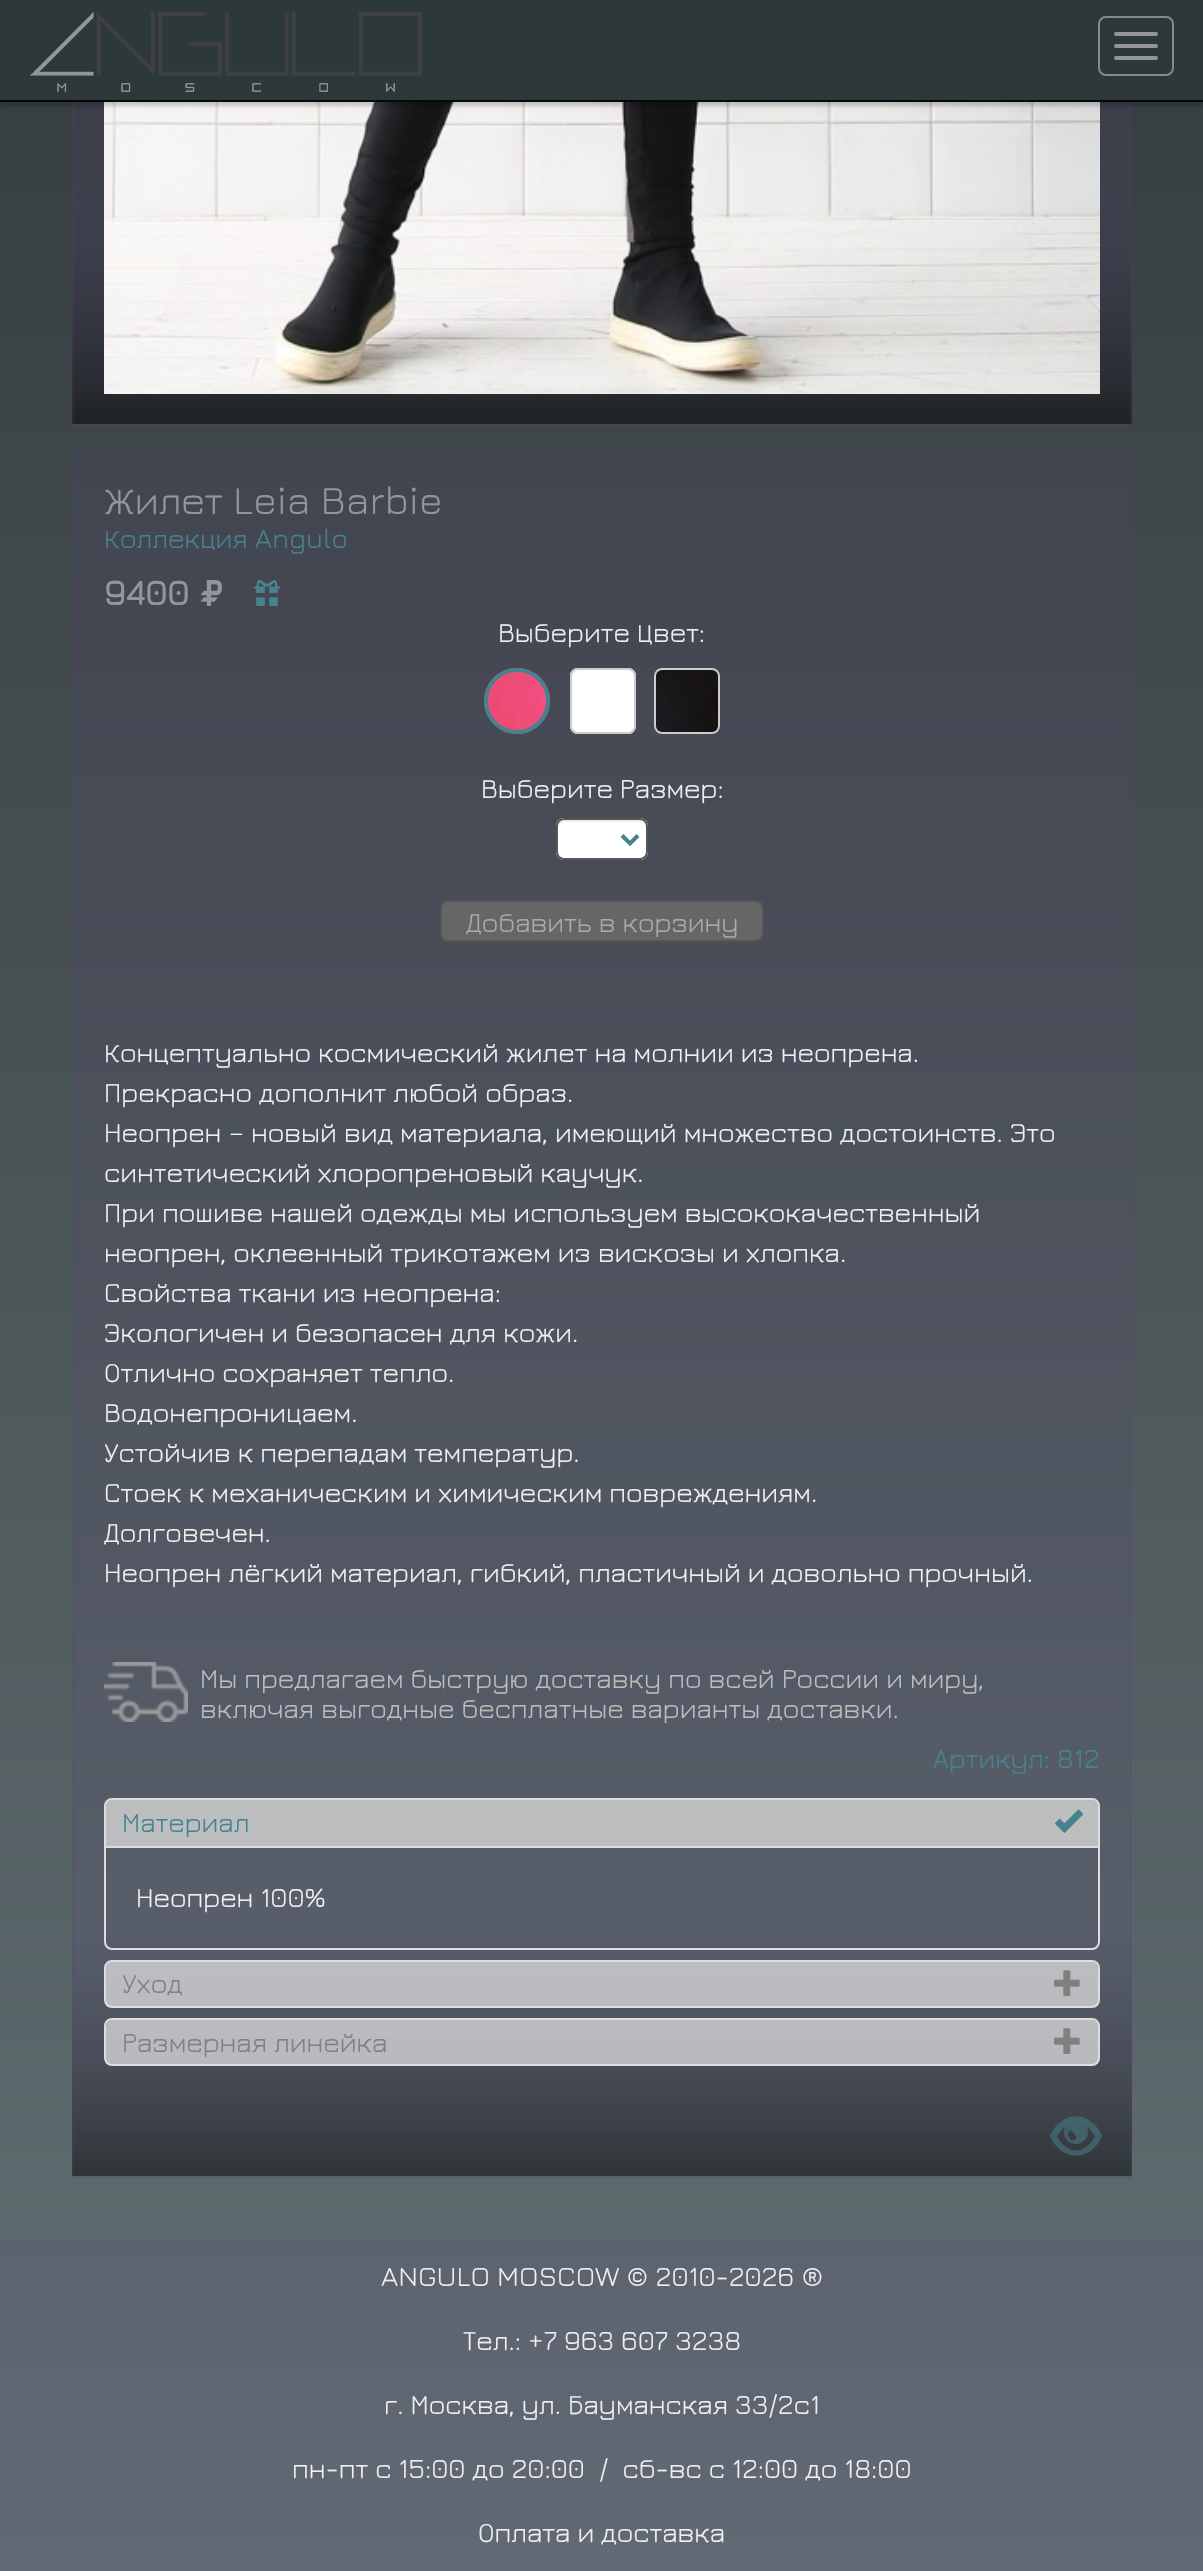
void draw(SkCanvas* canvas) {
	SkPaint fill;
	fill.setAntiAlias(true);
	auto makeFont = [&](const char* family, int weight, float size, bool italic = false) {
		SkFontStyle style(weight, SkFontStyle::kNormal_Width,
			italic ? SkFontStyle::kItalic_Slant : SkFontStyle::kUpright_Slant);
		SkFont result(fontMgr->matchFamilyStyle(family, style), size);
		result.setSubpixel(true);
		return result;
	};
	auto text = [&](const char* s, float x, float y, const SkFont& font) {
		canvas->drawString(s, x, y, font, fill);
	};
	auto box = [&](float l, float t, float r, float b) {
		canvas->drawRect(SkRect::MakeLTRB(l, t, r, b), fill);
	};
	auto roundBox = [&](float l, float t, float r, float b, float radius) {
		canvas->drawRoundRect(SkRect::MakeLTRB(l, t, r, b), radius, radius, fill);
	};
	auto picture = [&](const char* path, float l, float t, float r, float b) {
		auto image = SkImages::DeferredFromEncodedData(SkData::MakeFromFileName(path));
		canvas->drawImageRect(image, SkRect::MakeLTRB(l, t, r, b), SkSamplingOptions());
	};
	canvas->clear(0xFFFFFFFF);
	{
		const SkColor colors[] = {0xFF637174, 0xFF1C2021};
		const float stops[] = {0, 1};
		const SkPoint ends[] = {{602, 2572}, {602, -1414}};
		fill.setShader(SkGradientShader::MakeLinear(ends, colors, stops, 2, SkTileMode::kClamp));
		fill.setAlpha(255);
	}
	box(0, 102, 1203, 2240);
	{
		const SkColor colors[] = {0xFF616975, 0xFF25242F};
		const float stops[] = {0, 1};
		const SkPoint ends[] = {{602, 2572}, {602, -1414}};
		fill.setShader(SkGradientShader::MakeLinear(ends, colors, stops, 2, SkTileMode::kClamp));
		fill.setAlpha(255);
	}
	box(0, 2240, 1203, 2571);
	{
		const SkColor colors[] = {0x26563D7C, 0x26563D7C, 0x80000000};
		const float stops[] = {0, 0.85f, 1};
		const SkPoint ends[] = {{602, -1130}, {602, 424}};
		fill.setShader(SkGradientShader::MakeLinear(ends, colors, stops, 3, SkTileMode::kClamp));
		fill.setAlpha(255);
	}
	box(72, 102, 1132, 424);
	{
		const SkColor colors[] = {0xFF41444F, 0xFF41444F, 0xFF1F2324};
		const float stops[] = {0, 0.85f, 1};
		const SkPoint ends[] = {{602, 424}, {602, 1978}};
		fill.setShader(SkGradientShader::MakeLinear(ends, colors, stops, 3, SkTileMode::kClamp));
		fill.setAlpha(255);
	}
	box(72, 424, 1132, 426);
	fill.setShader(nullptr);
	fill.setColor(0x33563D7C);
	canvas->drawPath(SkPathBuilder().moveTo(1132, -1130).lineTo(1132, 426).lineTo(1130, 424).lineTo(1130, -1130).close().detach(), fill);
	canvas->drawPath(SkPathBuilder().moveTo(1132, 426).lineTo(72, 426).lineTo(74, 424).lineTo(1130, 424).close().detach(), fill);
	canvas->drawPath(SkPathBuilder().moveTo(72, 426).lineTo(72, -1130).lineTo(74, -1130).lineTo(74, 424).close().detach(), fill);
	picture("image1.png", 104, 102, 1100, 394);
	fill.setColor(0x33000000);
	fill.setMaskFilter(SkMaskFilter::MakeBlur(kNormal_SkBlurStyle, 2));
	canvas->drawRect(SkRect::MakeLTRB(0, 4, 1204, 106), fill);
	fill.setMaskFilter(nullptr);
	fill.setColor(0xFF2D383B);
	box(0, 0, 1203, 100);
	fill.setColor(0xFF080808);
	box(0, 100, 1203, 102);
	picture("image0.png", 30, 12, 422, 92);
	fill.setStyle(SkPaint::kStroke_Style);
	fill.setStrokeWidth(2);
	fill.setColor(0xFF888888);
	canvas->drawRoundRect(SkRect::MakeLTRB(1099, 17, 1173, 75), 7, 7, fill);
	fill.setStyle(SkPaint::kFill_Style);
	fill.setColor(0xFF939598);
	roundBox(1114, 32, 1158, 36, 2);
	roundBox(1114, 44, 1158, 48, 2);
	roundBox(1114, 56, 1158, 60, 2);
	{
		const SkColor colors[] = {0x26563D7C, 0x26563D7C, 0x80000000};
		const float stops[] = {0, 0.85f, 1};
		const SkPoint ends[] = {{602, 448}, {602, 2176}};
		fill.setShader(SkGradientShader::MakeLinear(ends, colors, stops, 3, SkTileMode::kClamp));
		fill.setAlpha(255);
	}
	box(72, 448, 1132, 2176);
	{
		const SkColor colors[] = {0xFF5B626E, 0xFF5B626E, 0xFF2E3536};
		const float stops[] = {0, 0.85f, 1};
		const SkPoint ends[] = {{602, 2176}, {602, 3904}};
		fill.setShader(SkGradientShader::MakeLinear(ends, colors, stops, 3, SkTileMode::kClamp));
		fill.setAlpha(255);
	}
	box(72, 2176, 1132, 2178);
	fill.setShader(nullptr);
	fill.setColor(0x33563D7C);
	canvas->drawPath(SkPathBuilder().moveTo(1132, 448).lineTo(1132, 2178).lineTo(1130, 2176).lineTo(1130, 448).close().detach(), fill);
	canvas->drawPath(SkPathBuilder().moveTo(1132, 2178).lineTo(72, 2178).lineTo(74, 2176).lineTo(1130, 2176).close().detach(), fill);
	canvas->drawPath(SkPathBuilder().moveTo(72, 2178).lineTo(72, 448).lineTo(74, 448).lineTo(74, 2176).close().detach(), fill);
	picture("image2.png", 200, 580, 222, 606);
	picture("image3.png", 254, 580, 280, 606);
	picture("image4.png", 484, 668, 550, 734);
	fill.setStyle(SkPaint::kStroke_Style);
	fill.setStrokeWidth(4);
	fill.setColor(0xFF47838E);
	canvas->drawCircle(517, 701, 31, fill);
	picture("image5.png", 570, 668, 636, 734);
	fill.setStrokeWidth(2);
	fill.setColor(0xFFCCCCCC);
	canvas->drawRoundRect(SkRect::MakeLTRB(571, 669, 635, 733), 7, 7, fill);
	picture("image6.png", 654, 668, 720, 734);
	canvas->drawRoundRect(SkRect::MakeLTRB(655, 669, 719, 733), 7, 7, fill);
	fill.setStyle(SkPaint::kFill_Style);
	fill.setColor(0xFFFFFFFF);
	roundBox(556, 818, 648, 860, 8);
	fill.setColor(0xFFECECEC);
	canvas->drawPath(SkPathBuilder().moveTo(564, 822).lineTo(640, 822).cubicTo(643, 822, 646, 825, 646, 828).cubicTo(646, 817, 636, 820, 627, 820).lineTo(577, 820).cubicTo(568, 820, 558, 817, 558, 828).cubicTo(558, 825, 561, 822, 564, 822).close().detach(), fill);
	fill.setStyle(SkPaint::kStroke_Style);
	fill.setColor(0xFF555555);
	canvas->drawRoundRect(SkRect::MakeLTRB(557, 819, 647, 859), 7, 7, fill);
	fill.setStrokeWidth(4);
	fill.setColor(0xFF47838E);
	canvas->drawPath(SkPathBuilder().moveTo(622, 835.5f).lineTo(630, 843.5f).lineTo(638, 835.5f).detach(), fill);
	fill.setStyle(SkPaint::kFill_Style);
	fill.setColor(0xFF666666);
	canvas->drawRoundRect(SkRect::MakeLTRB(441, 901, 763, 941), 7, 7, fill);
	fill.setStyle(SkPaint::kStroke_Style);
	fill.setStrokeWidth(2);
	fill.setColor(0xFF555555);
	canvas->drawRoundRect(SkRect::MakeLTRB(441, 901, 763, 941), 7, 7, fill);
	picture("image7.png", 104, 1662, 188, 1722);
	fill.setColor(0xFFDDDDDD);
	canvas->drawRoundRect(SkRect::MakeLTRB(105, 1799, 1099, 1949), 7, 7, fill);
	fill.setStyle(SkPaint::kFill_Style);
	fill.setColor(0xBFDDDDDD);
	canvas->drawPath(SkPathBuilder().moveTo(112, 1800).lineTo(1092, 1800).cubicTo(1095.5f, 1800, 1098, 1802.5f, 1098, 1806).lineTo(1098, 1846).lineTo(106, 1846).lineTo(106, 1806).cubicTo(106, 1802.5f, 108.5f, 1800, 112, 1800).close().detach(), fill);
	picture("image8.png", 1055, 1809, 1084, 1833);
	fill.setColor(0xFFDDDDDD);
	box(106, 1846, 1098, 1848);
	fill.setStyle(SkPaint::kStroke_Style);
	canvas->drawRoundRect(SkRect::MakeLTRB(105, 1961, 1099, 2007), 7, 7, fill);
	fill.setStyle(SkPaint::kFill_Style);
	fill.setColor(0xBFDDDDDD);
	canvas->drawPath(SkPathBuilder().moveTo(112, 1962).lineTo(1092, 1962).cubicTo(1095.5f, 1962, 1098, 1964.5f, 1098, 1968).lineTo(1098, 2006).lineTo(106, 2006).lineTo(106, 1968).cubicTo(106, 1964.5f, 108.5f, 1962, 112, 1962).close().detach(), fill);
	picture("image9.png", 1054, 1970, 1080, 1996);
	fill.setStyle(SkPaint::kStroke_Style);
	fill.setColor(0xFFDDDDDD);
	canvas->drawRoundRect(SkRect::MakeLTRB(105, 2019, 1099, 2065), 7, 7, fill);
	fill.setStyle(SkPaint::kFill_Style);
	fill.setColor(0xBFDDDDDD);
	canvas->drawPath(SkPathBuilder().moveTo(112, 2020).lineTo(1092, 2020).cubicTo(1095.5f, 2020, 1098, 2022.5f, 1098, 2026).lineTo(1098, 2064).lineTo(106, 2064).lineTo(106, 2026).cubicTo(106, 2022.5f, 108.5f, 2020, 112, 2020).close().detach(), fill);
	picture("image10.png", 1054, 2028, 1080, 2054);
	picture("image11.png", 1050, 2116, 1102, 2156);
	auto font1 = makeFont("Jura", 300, 40);
	fill.setColor(0xFF939598);
	text("Жилет Leia Barbie", 104, 514, font1);
	auto font2 = makeFont("Jura", 300, 28);
	fill.setColor(0xFF47838E);
	text("Коллекция Angulo", 104, 548, font2);
	auto font3 = makeFont("Jura", 700, 36);
	fill.setColor(0xFF939598);
	text("9400", 104, 605, font3);
	fill.setColor(0xFFEFEFEF);
	text("Выберите Цвет:", 498, 642, font2);
	text("Выберите Размер:", 481, 798, font2);
	fill.setColor(0xFFAAAAAA);
	text("Добавить в корзину", 466, 932, font2);
	fill.setColor(0xFFEFEFEF);
	text("Концептуально космический жилет на молнии из неопрена.", 104, 1062, font2);
	text("Прекрасно дополнит любой образ.", 104, 1102, font2);
	text("Неопрен – новый вид материала, имеющий множество достоинств. Это", 104, 1142, font2);
	text("синтетический хлоропреновый каучук.", 104, 1182, font2);
	text("При пошиве нашей одежды мы используем высококачественный", 104, 1222, font2);
	text("неопрен, оклеенный трикотажем из вискозы и хлопка.", 104, 1262, font2);
	text("Свойства ткани из неопрена:", 104, 1302, font2);
	text("Экологичен и безопасен для кожи.", 104, 1342, font2);
	text("Отлично сохраняет тепло.", 104, 1382, font2);
	text("Водонепроницаем.", 104, 1422, font2);
	text("Устойчив к перепадам температур.", 104, 1462, font2);
	text("Стоек к механическим и химическим повреждениям.", 104, 1502, font2);
	text("Долговечен.", 104, 1542, font2);
	text("Неопрен лёгкий материал, гибкий, пластичный и довольно прочный.", 104, 1582, font2);
	fill.setColor(0xFFBCBCBC);
	text("Мы предлагаем быструю доставку по всей России и миру,", 200, 1688, font2);
	text("включая выгодные бесплатные варианты доставки.", 200, 1718, font2);
	fill.setColor(0xFF47838E);
	text("Артикул: 812", 933, 1768, font2);
	text("Материал", 122, 1832, font2);
	fill.setColor(0xFFEFEFEF);
	text("Неопрен 100%", 136, 1907, font2);
	fill.setColor(0xFF808080);
	text("Уход", 122, 1993, font2);
	text("Размерная линейка", 122, 2052, font2);
	fill.setColor(0xFFEFEFEF);
	text("ANGULO MOSCOW © 2010-2026 ®", 381, 2286, font2);
	text("Тел.: +7 963 607 3238", 463, 2350, font2);
	text("г. Москва, ул. Бауманская 33/2с1", 384, 2414, font2);
	text("пн-пт с 15:00 до 20:00  /  сб-вс с 12:00 до 18:00", 292, 2478, font2);
	text("Оплата и доставка", 478, 2542, font2);
}
